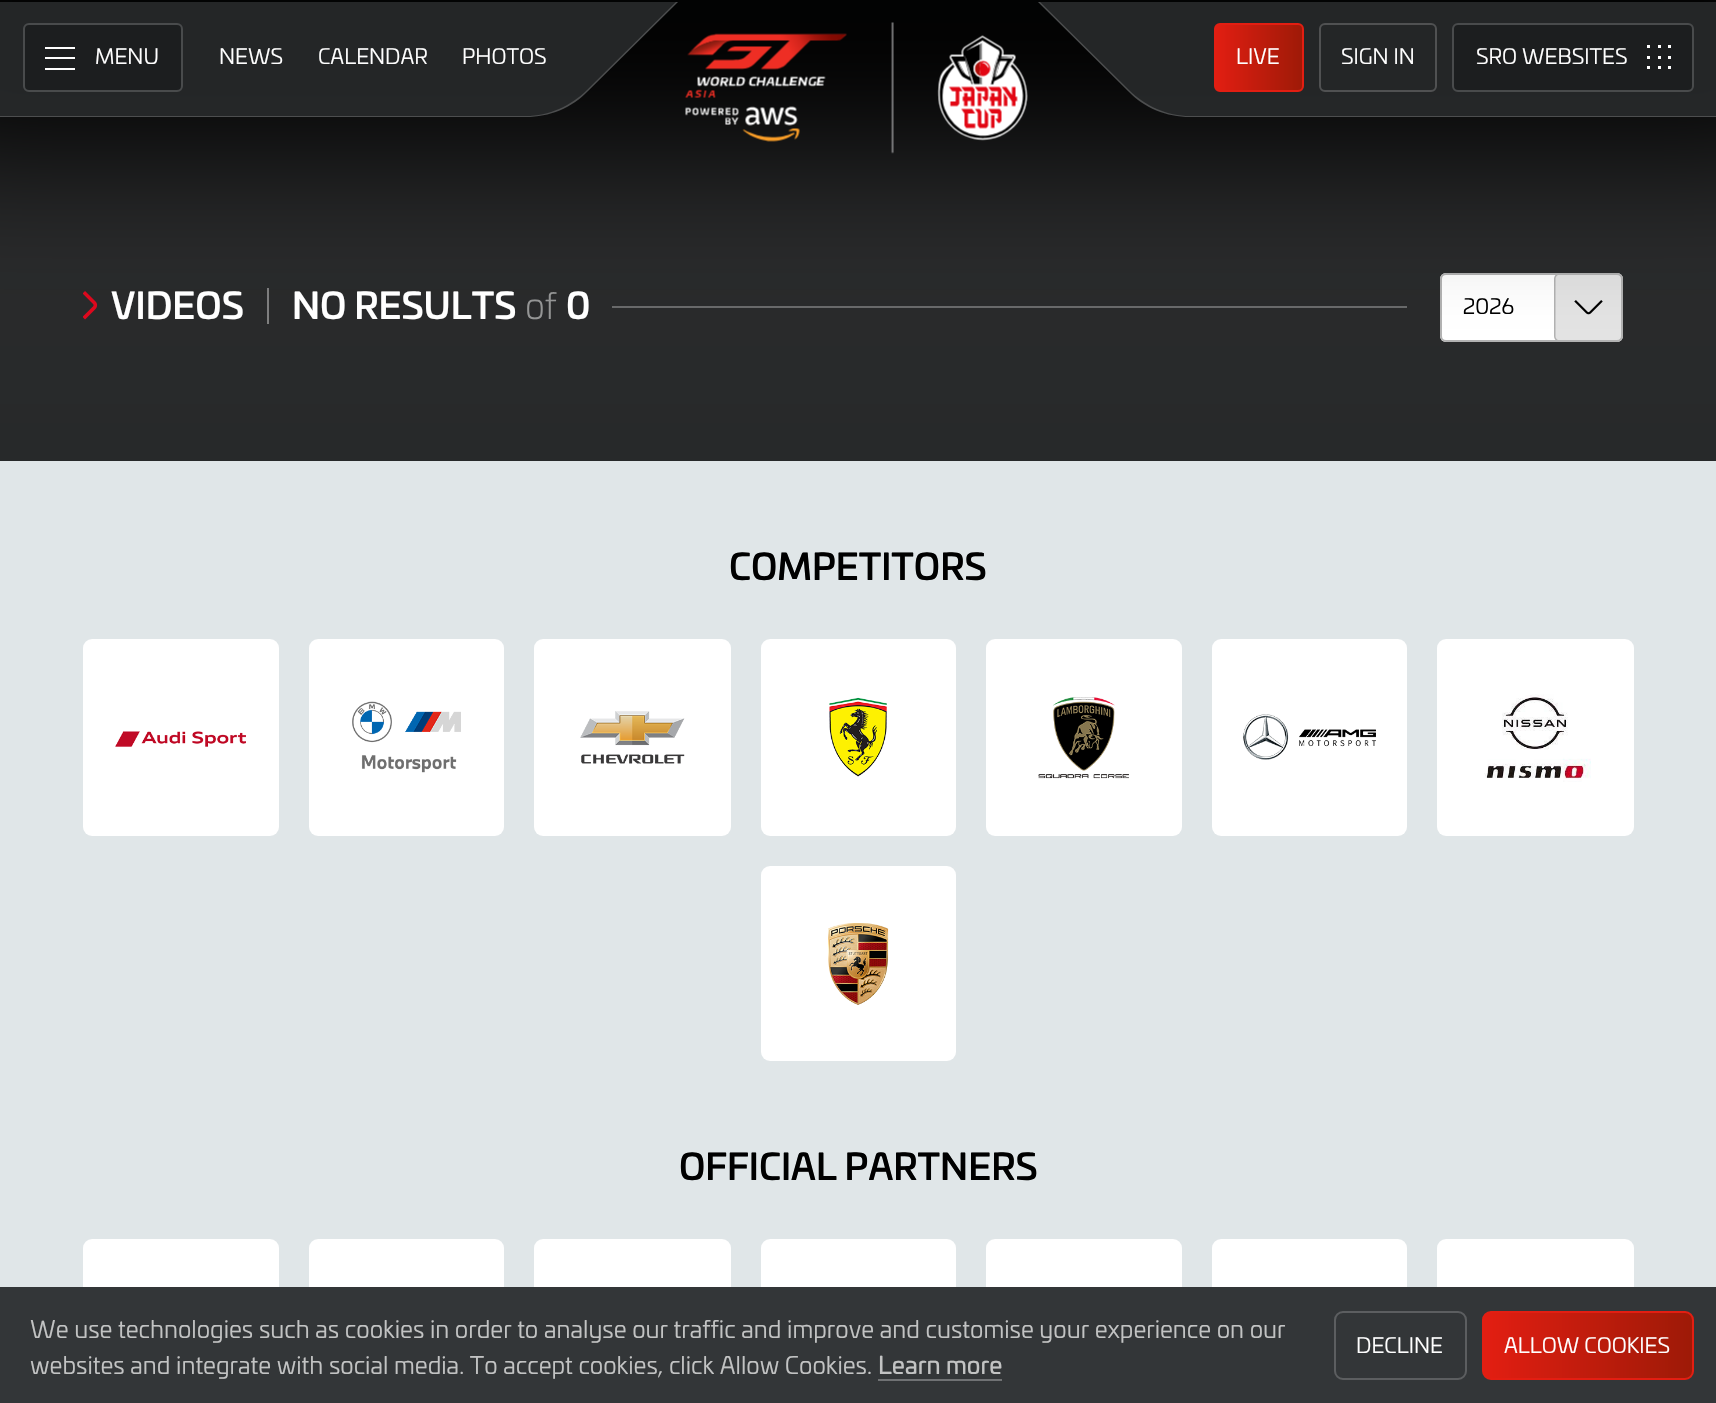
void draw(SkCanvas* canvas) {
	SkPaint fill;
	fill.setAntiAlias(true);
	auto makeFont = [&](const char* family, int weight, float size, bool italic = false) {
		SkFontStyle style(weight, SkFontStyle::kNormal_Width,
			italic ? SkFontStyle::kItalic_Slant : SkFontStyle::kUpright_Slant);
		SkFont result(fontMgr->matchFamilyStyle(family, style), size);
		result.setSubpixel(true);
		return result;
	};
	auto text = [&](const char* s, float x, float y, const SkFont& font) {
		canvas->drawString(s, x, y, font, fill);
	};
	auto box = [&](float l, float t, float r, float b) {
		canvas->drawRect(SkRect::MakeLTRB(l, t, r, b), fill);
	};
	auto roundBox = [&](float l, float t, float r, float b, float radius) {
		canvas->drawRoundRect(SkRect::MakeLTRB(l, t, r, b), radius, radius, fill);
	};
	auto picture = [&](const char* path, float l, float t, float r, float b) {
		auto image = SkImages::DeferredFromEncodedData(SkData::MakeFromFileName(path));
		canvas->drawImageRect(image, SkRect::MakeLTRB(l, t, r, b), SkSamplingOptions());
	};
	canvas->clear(0xFFE0E6E8);
	fill.setColor(0xFF2A2B2C);
	box(0, 0, 1716, 231);
	{
		const SkColor colors[] = {0xFF27292A, 0xFF2A2B2C};
		const float stops[] = {0, 1};
		const SkPoint ends[] = {{858, 461}, {858, 231}};
		fill.setShader(SkGradientShader::MakeLinear(ends, colors, stops, 2, SkTileMode::kClamp));
		fill.setAlpha(255);
	}
	box(0, 231, 1716, 461);
	picture("image1.png", 83, 291, 98, 320);
	fill.setShader(nullptr);
	fill.setColor(0xFF7F7F80);
	box(267, 288, 269, 324);
	fill.setColor(0xFF696A6B);
	box(612, 306, 1407, 308);
	fill.setColor(0xFFFFFFFF);
	roundBox(1440, 273, 1623, 342, 6);
	picture("image2.png", 1554, 273, 1623, 342);
	fill.setStyle(SkPaint::kStroke_Style);
	fill.setStrokeWidth(2);
	fill.setColor(0xFFB2B2B2);
	canvas->drawRoundRect(SkRect::MakeLTRB(1441, 274, 1622, 341), 5, 5, fill);
	fill.setStyle(SkPaint::kFill_Style);
	fill.setColor(0xFF000000);
	fill.setMaskFilter(SkMaskFilter::MakeBlur(kNormal_SkBlurStyle, 75));
	canvas->drawRect(SkRect::MakeLTRB(-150, -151, 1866, 150), fill);
	fill.setMaskFilter(nullptr);
	fill.setColor(0xE627292A);
	canvas->drawPath(SkPathBuilder().moveTo(-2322, 2).lineTo(-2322, 117).lineTo(526, 117).cubicTo(549, 117, 572, 108, 588, 91).lineTo(678, 2).close().detach(), fill);
	fill.setColor(0x2EFFFFFF);
	canvas->drawPath(SkPathBuilder().moveTo(676, 2).lineTo(587, 90).cubicTo(571, 106, 549, 116, 526, 116).lineTo(-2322, 116).lineTo(-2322, 117).lineTo(526, 117).cubicTo(549, 117, 572, 108, 588, 91).lineTo(678, 2).close().detach(), fill);
	fill.setColor(0xFF1C1E1F);
	canvas->drawRoundRect(SkRect::MakeLTRB(24, 24, 182, 91), 5, 5, fill);
	fill.setStyle(SkPaint::kStroke_Style);
	fill.setColor(0xFF494B4C);
	canvas->drawRoundRect(SkRect::MakeLTRB(24, 24, 182, 91), 5, 5, fill);
	fill.setStyle(SkPaint::kFill_Style);
	fill.setColor(0xFFFFFFFF);
	box(45, 47, 75, 49);
	box(45, 57, 75, 59);
	box(45, 68, 75, 70);
	picture("image0.png", 685, 22, 1028, 154);
	fill.setColor(0xE627292A);
	canvas->drawPath(SkPathBuilder().moveTo(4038, 2).lineTo(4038, 117).lineTo(1190, 117).cubicTo(1167, 117, 1144, 108, 1128, 91).lineTo(1038, 2).close().detach(), fill);
	fill.setColor(0x2EFFFFFF);
	canvas->drawPath(SkPathBuilder().moveTo(1040, 2).lineTo(1129, 90).cubicTo(1145, 106, 1167, 116, 1190, 116).lineTo(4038, 116).lineTo(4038, 117).lineTo(1190, 117).cubicTo(1167, 117, 1144, 108, 1128, 91).lineTo(1038, 2).close().detach(), fill);
	{
		const SkColor colors[] = {0xFFE31E12, 0xFF9D1A07};
		const float stops[] = {0, 1};
		const SkPoint ends[] = {{1214, 57}, {1304, 57}};
		fill.setShader(SkGradientShader::MakeLinear(ends, colors, stops, 2, SkTileMode::kClamp));
		fill.setAlpha(255);
	}
	canvas->drawRoundRect(SkRect::MakeLTRB(1215, 24, 1303, 91), 5, 5, fill);
	fill.setStyle(SkPaint::kStroke_Style);
	fill.setShader(nullptr);
	fill.setColor(0xFFE31E12);
	canvas->drawRoundRect(SkRect::MakeLTRB(1215, 24, 1303, 91), 5, 5, fill);
	fill.setColor(0xFF505152);
	canvas->drawRoundRect(SkRect::MakeLTRB(1320, 24, 1436, 91), 5, 5, fill);
	fill.setStyle(SkPaint::kFill_Style);
	fill.setColor(0xFF1C1E1F);
	canvas->drawRoundRect(SkRect::MakeLTRB(1453, 24, 1693, 91), 5, 5, fill);
	fill.setStyle(SkPaint::kStroke_Style);
	fill.setColor(0xFF494B4C);
	canvas->drawRoundRect(SkRect::MakeLTRB(1453, 24, 1693, 91), 5, 5, fill);
	fill.setStyle(SkPaint::kFill_Style);
	fill.setColor(0xFFFFFFFF);
	box(1647, 45, 1650, 48);
	box(1658, 45, 1661, 48);
	box(1668, 45, 1671, 48);
	box(1647, 56, 1650, 59);
	box(1658, 56, 1661, 59);
	box(1668, 56, 1671, 59);
	box(1647, 66, 1650, 69);
	box(1658, 66, 1661, 69);
	box(1668, 66, 1671, 69);
	roundBox(83, 639, 279, 836, 9);
	picture("image3.png", 115, 731, 246, 747);
	roundBox(309, 639, 504, 836, 9);
	picture("image4.png", 352, 701, 461, 773);
	roundBox(534, 639, 731, 836, 9);
	picture("image5.png", 580, 711, 685, 764);
	roundBox(761, 639, 956, 836, 9);
	picture("image6.png", 829, 697, 887, 777);
	roundBox(986, 639, 1182, 836, 9);
	picture("image7.png", 1038, 697, 1129, 779);
	roundBox(1212, 639, 1407, 836, 9);
	picture("image8.png", 1243, 714, 1376, 760);
	roundBox(1437, 639, 1634, 836, 9);
	picture("image9.png", 1484, 694, 1591, 782);
	roundBox(761, 866, 956, 1061, 9);
	picture("image10.png", 828, 923, 889, 1005);
	roundBox(83, 1239, 279, 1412, 9);
	roundBox(309, 1239, 504, 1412, 9);
	roundBox(534, 1239, 731, 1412, 9);
	roundBox(761, 1239, 956, 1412, 9);
	roundBox(986, 1239, 1182, 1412, 9);
	roundBox(1212, 1239, 1407, 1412, 9);
	roundBox(1437, 1239, 1634, 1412, 9);
	fill.setColor(0xFF333638);
	box(0, 1287, 1716, 1403);
	fill.setColor(0xFF707274);
	box(878, 1379, 1002, 1381);
	fill.setStyle(SkPaint::kStroke_Style);
	fill.setColor(0xFF5C5E60);
	canvas->drawRoundRect(SkRect::MakeLTRB(1335, 1312, 1466, 1379), 8, 8, fill);
	fill.setStyle(SkPaint::kFill_Style);
	{
		const SkColor colors[] = {0xFFE31E12, 0xFF9D1A07};
		const float stops[] = {0, 1};
		const SkPoint ends[] = {{1482, 1346}, {1694, 1346}};
		fill.setShader(SkGradientShader::MakeLinear(ends, colors, stops, 2, SkTileMode::kClamp));
		fill.setAlpha(255);
	}
	canvas->drawRoundRect(SkRect::MakeLTRB(1483, 1312, 1693, 1379), 8, 8, fill);
	fill.setStyle(SkPaint::kStroke_Style);
	fill.setShader(nullptr);
	fill.setColor(0xFFE31E12);
	canvas->drawRoundRect(SkRect::MakeLTRB(1483, 1312, 1693, 1379), 8, 8, fill);
	auto font1 = makeFont("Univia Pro", 400, 21);
	fill.setStyle(SkPaint::kFill_Style);
	fill.setColor(0xFFFFFFFF);
	text("MENU", 95, 64, font1);
	text("NEWS", 219, 64, font1);
	text("CALENDAR", 318, 64, font1);
	text("PHOTOS", 462, 64, font1);
	text("LIVE", 1236, 64, font1);
	text("SIGN IN", 1341, 64, font1);
	text("SRO WEBSITES", 1476, 64, font1);
	auto font2 = makeFont("Univia Pro", 500, 36);
	text("VIDEOS", 111, 319, font2);
	text("NO RESULTS", 292, 319, font2);
	auto font3 = makeFont("Univia Pro", 300, 36);
	fill.setColor(0xFF949595);
	text("of", 525, 319, font3);
	fill.setColor(0xFFFFFFFF);
	text("0", 566, 319, font2);
	fill.setColor(0xFF000000);
	text("2026", 1463, 314, font1);
	text("COMPETITORS", 729, 580, font2);
	text("OFFICIAL PARTNERS", 679, 1180, font2);
	auto font4 = makeFont("Univia Pro", 400, 24);
	fill.setColor(0xFFC2C3C3);
	text("We use technologies such as cookies in order to analyse our traffic and improve and customise your experience on our", 30, 1338, font4);
	text("websites and integrate with social media. To accept cookies, click Allow Cookies.", 30, 1374, font4);
	auto font5 = makeFont("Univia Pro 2", 400, 24);
	text("Learn more", 878, 1374, font5);
	fill.setColor(0xFFFFFFFF);
	text("DECLINE", 1356, 1353, font1);
	text("ALLOW COOKIES", 1504, 1353, font1);
}
